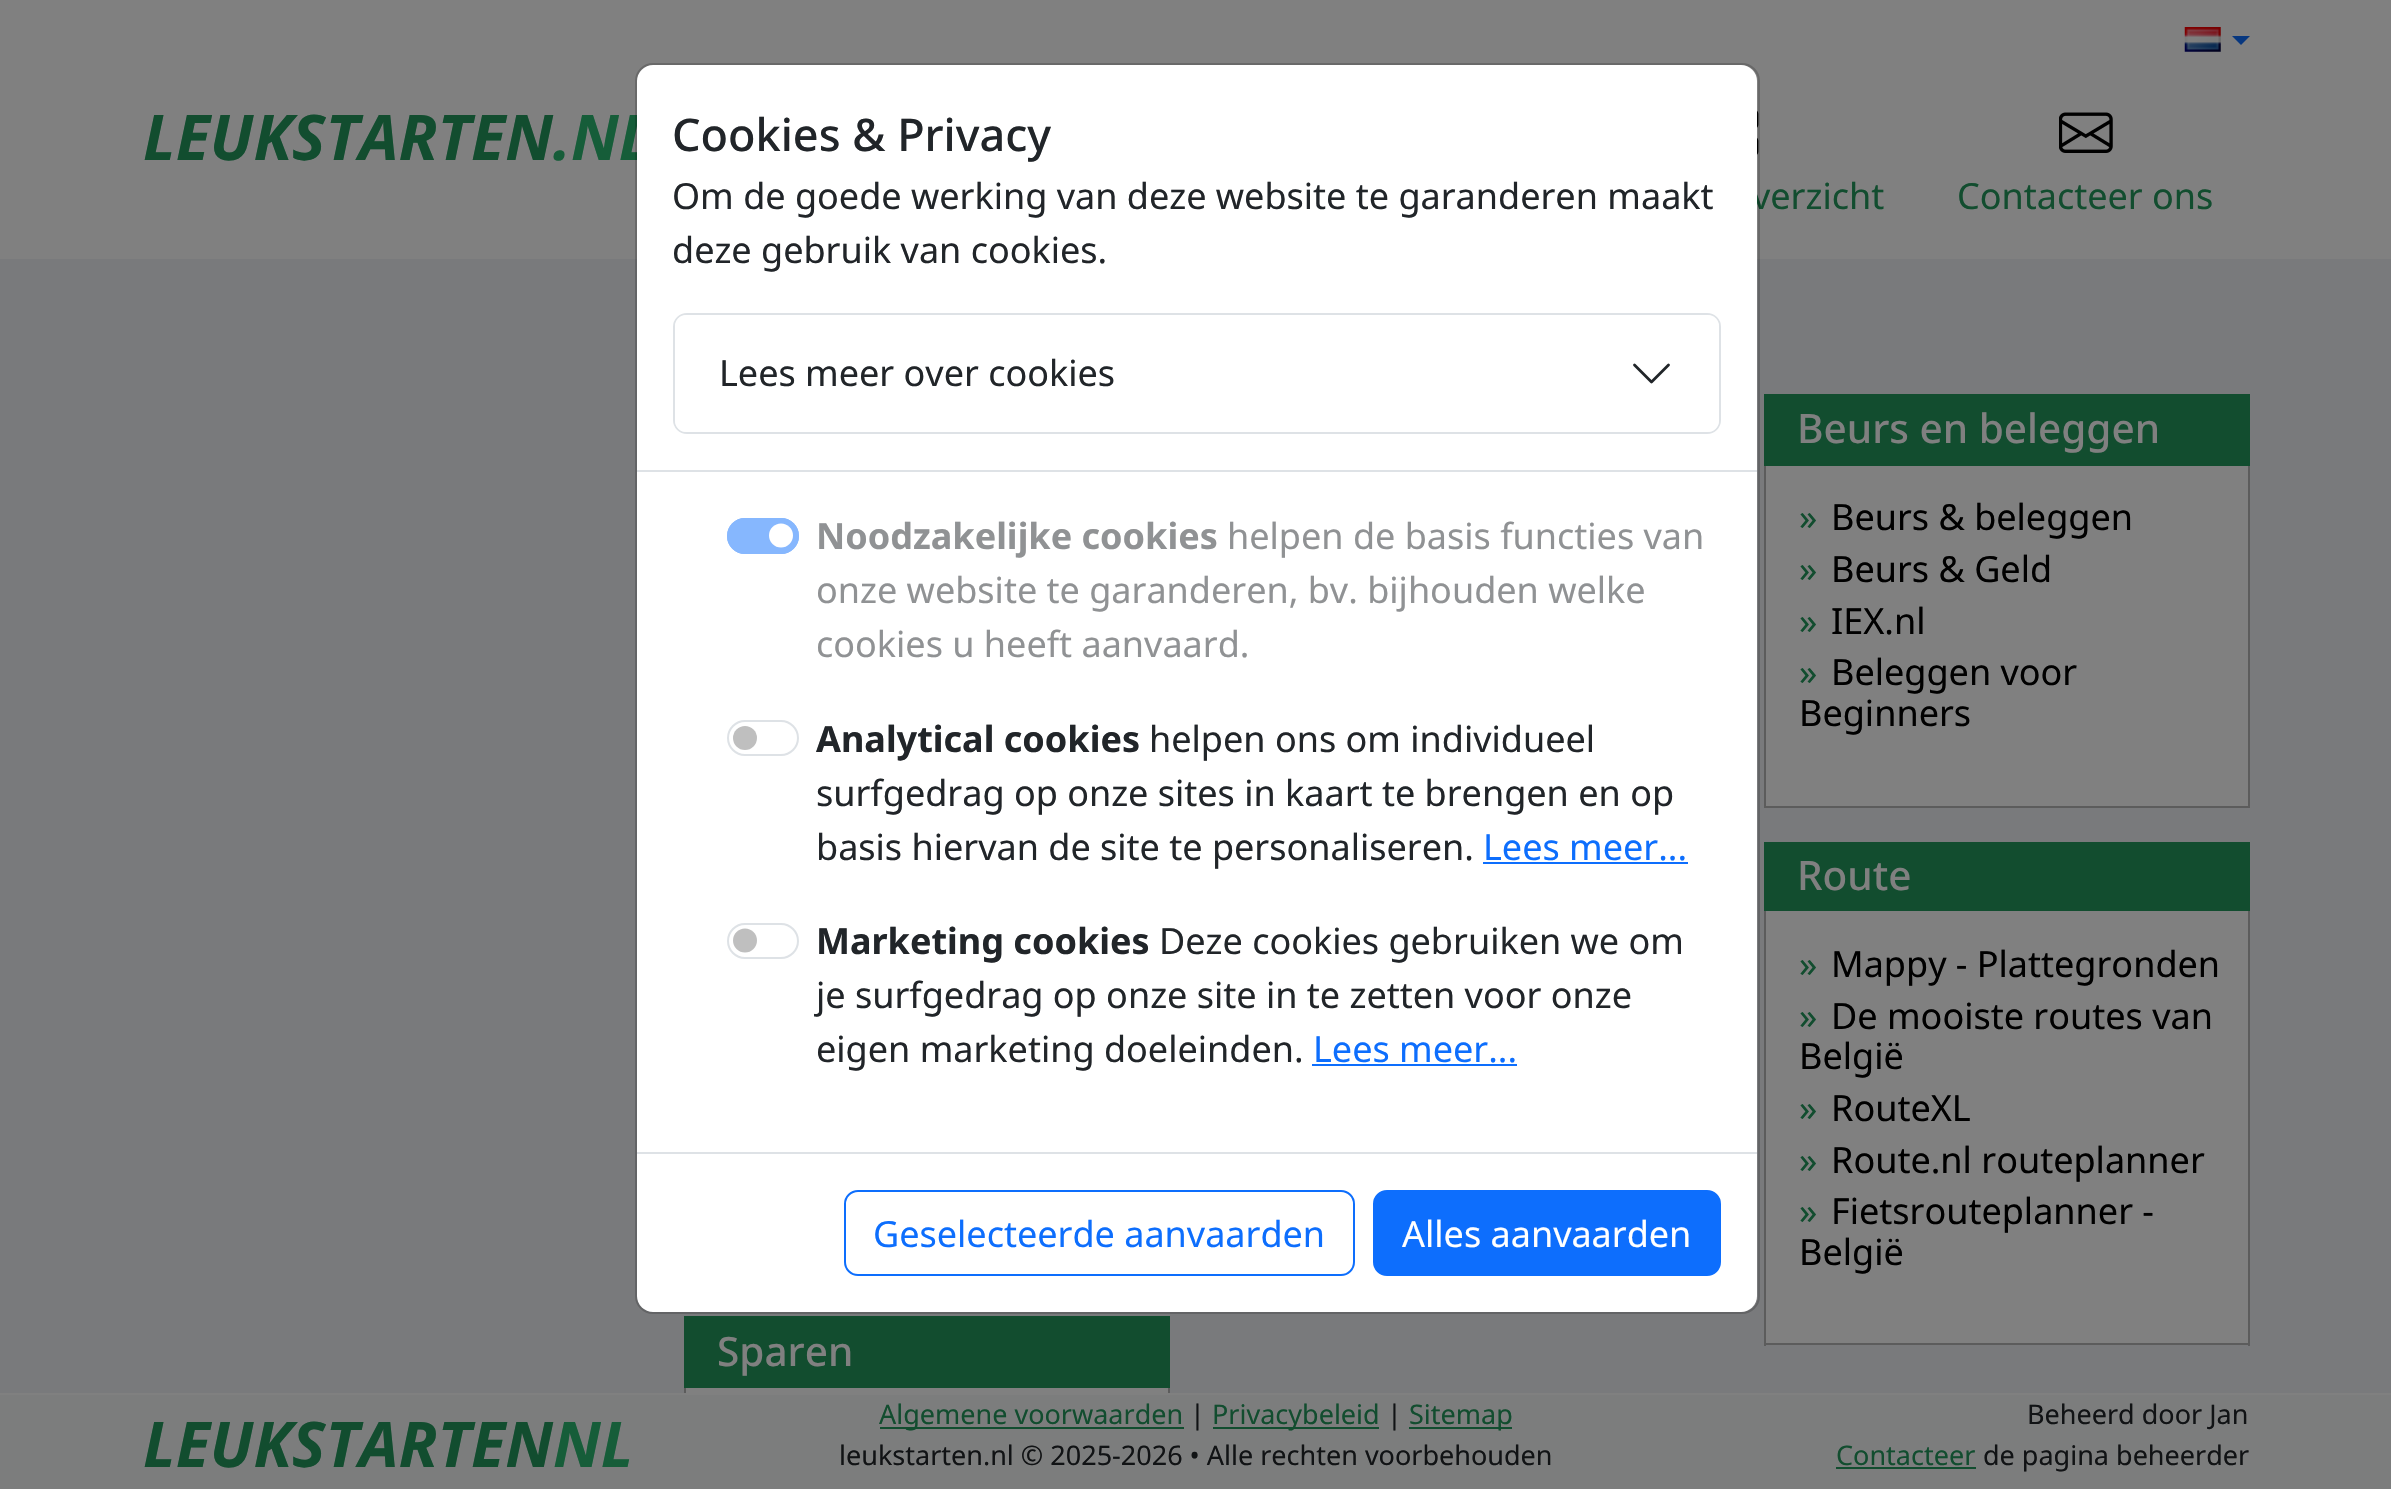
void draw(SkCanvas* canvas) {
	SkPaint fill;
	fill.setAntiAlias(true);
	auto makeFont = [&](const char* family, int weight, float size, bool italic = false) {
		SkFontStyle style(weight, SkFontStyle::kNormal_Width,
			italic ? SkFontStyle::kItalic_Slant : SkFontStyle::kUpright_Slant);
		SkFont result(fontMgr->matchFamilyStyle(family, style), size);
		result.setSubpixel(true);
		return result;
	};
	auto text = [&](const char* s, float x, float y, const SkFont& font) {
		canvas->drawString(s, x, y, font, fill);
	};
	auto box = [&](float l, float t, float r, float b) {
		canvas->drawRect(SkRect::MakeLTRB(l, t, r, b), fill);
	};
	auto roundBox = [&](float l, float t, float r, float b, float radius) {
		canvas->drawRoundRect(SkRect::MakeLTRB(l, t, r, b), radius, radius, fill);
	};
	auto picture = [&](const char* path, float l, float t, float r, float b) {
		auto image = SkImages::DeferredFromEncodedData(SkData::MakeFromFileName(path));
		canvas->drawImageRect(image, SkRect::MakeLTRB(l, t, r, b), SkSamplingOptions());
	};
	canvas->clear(0xFF797A7C);
	fill.setColor(0xFF808080);
	box(0, 0, 2391, 259);
	picture("image0.png", 2184, 27, 2221, 52);
	fill.setColor(0xFF07377F);
	canvas->drawPath(SkPathBuilder().moveTo(2232, 36).lineTo(2250, 36).lineTo(2241, 45).close().detach(), fill);
	picture("image1.png", 1757, 110, 1759, 155);
	picture("image2.png", 2059, 112, 2113, 153);
	fill.setColor(0xFF124D2F);
	box(1764, 394, 2250, 466);
	fill.setColor(0xFF808080);
	box(1766, 466, 2248, 806);
	fill.setColor(0xFF5C5C5C);
	box(2248, 466, 2250, 808);
	box(1764, 806, 2250, 808);
	box(1764, 466, 1766, 808);
	fill.setColor(0xFF124D2F);
	box(1764, 842, 2250, 911);
	fill.setColor(0xFF808080);
	box(1766, 911, 2248, 1343);
	fill.setColor(0xFF5C5C5C);
	box(2248, 911, 2250, 1346);
	box(1764, 1343, 2250, 1345);
	box(1764, 911, 1766, 1346);
	fill.setColor(0xFF124D2F);
	box(684, 1316, 1170, 1388);
	fill.setColor(0xFF808080);
	box(686, 1388, 1168, 1393);
	fill.setColor(0xFF5C5C5C);
	box(1168, 1388, 1170, 1393);
	box(684, 1388, 686, 1393);
	fill.setColor(0xFF7C7D7D);
	box(0, 1395, 2391, 1489);
	fill.setColor(0xFF808080);
	box(0, 1393, 2391, 1395);
	fill.setColor(0xFF124D2F);
	box(880, 1427, 1184, 1429);
	box(1213, 1427, 1379, 1429);
	box(1409, 1427, 1512, 1429);
	box(1836, 1467, 1976, 1469);
	auto font1 = makeFont("Noto Sans", 700, 63, true);
	text("LEUKSTARTEN", 143, 160, font1);
	fill.setColor(0xFF165D39);
	text(".NL", 553, 160, font1);
	auto font2 = makeFont("Noto Sans", 400, 36);
	fill.setColor(0xFF124D2F);
	text("verzicht", 1752, 209, font2);
	text("Contacteer ons", 1957, 209, font2);
	fill.setColor(0xFFFFFFFF);
	roundBox(637, 65, 1757, 1312, 16);
	fill.setStyle(SkPaint::kStroke_Style);
	fill.setStrokeWidth(2);
	fill.setColor(0x2E000000);
	canvas->drawRoundRect(SkRect::MakeLTRB(636, 64, 1759, 1313), 17, 17, fill);
	fill.setStyle(SkPaint::kFill_Style);
	fill.setColor(0xFFDEE2E6);
	box(637, 470, 1757, 472);
	auto font3 = makeFont("Noto Sans", 500, 45);
	fill.setColor(0xFF212529);
	text("Cookies & Privacy", 672, 151, font3);
	text("Om de goede werking van deze website te garanderen maakt", 672, 209, font2);
	text("deze gebruik van cookies.", 672, 263, font2);
	fill.setStyle(SkPaint::kStroke_Style);
	fill.setColor(0xFFDEE2E6);
	canvas->drawRoundRect(SkRect::MakeLTRB(674, 314, 1720, 433), 13, 13, fill);
	fill.setStyle(SkPaint::kFill_Style);
	fill.setColor(0xFFFFFFFF);
	roundBox(675, 315, 1719, 432, 11);
	fill.setColor(0xFF212529);
	text("Lees meer over cookies", 719, 386, font2);
	fill.setStyle(SkPaint::kStroke_Style);
	fill.setStrokeWidth(2.8f);
	fill.setStrokeCap(SkPaint::kRound_Cap);
	fill.setStrokeJoin(SkPaint::kRound_Join);
	canvas->drawPath(SkPathBuilder().moveTo(1634.5f, 365).lineTo(1651.5f, 382).lineTo(1668.5f, 365).detach(), fill);
	fill.setStyle(SkPaint::kFill_Style);
	fill.setColor(0xFF86B7FE);
	roundBox(727, 518, 799, 554, 18);
	fill.setColor(0xFFFFFFFF);
	canvas->drawCircle(781, 535.5f, 12, fill);
	fill.setStyle(SkPaint::kStroke_Style);
	fill.setStrokeWidth(2);
	fill.setStrokeCap(SkPaint::kButt_Cap);
	fill.setStrokeJoin(SkPaint::kMiter_Join);
	fill.setColor(0xFF86B7FE);
	canvas->drawRoundRect(SkRect::MakeLTRB(728, 519, 798, 553), 17, 17, fill);
	auto font4 = makeFont("Noto Sans", 700, 36);
	fill.setStyle(SkPaint::kFill_Style);
	fill.setColor(0xFF909294);
	text("Noodzakelijke cookies", 816, 549, font4);
	text("helpen de basis functies van", 1227, 549, font2);
	text("onze website te garanderen, bv. bijhouden welke", 816, 603, font2);
	text("cookies u heeft aanvaard.", 816, 657, font2);
	fill.setColor(0xFFBFBFBF);
	canvas->drawCircle(745, 738, 12, fill);
	fill.setStyle(SkPaint::kStroke_Style);
	fill.setColor(0xFFDEE2E6);
	canvas->drawRoundRect(SkRect::MakeLTRB(728, 721, 798, 755), 17, 17, fill);
	fill.setStyle(SkPaint::kFill_Style);
	fill.setColor(0xFF212529);
	text("Analytical cookies", 816, 752, font4);
	text("helpen ons om individueel", 1149, 752, font2);
	text("surfgedrag op onze sites in kaart te brengen en op", 816, 806, font2);
	text("basis hiervan de site te personaliseren.", 816, 860, font2);
	fill.setColor(0xFF0D6EFD);
	text("Lees meer...", 1483, 860, font2);
	box(1483, 862, 1688, 864);
	fill.setColor(0xFFBFBFBF);
	canvas->drawCircle(745, 940.5f, 12, fill);
	fill.setStyle(SkPaint::kStroke_Style);
	fill.setColor(0xFFDEE2E6);
	canvas->drawRoundRect(SkRect::MakeLTRB(728, 924, 798, 958), 17, 17, fill);
	fill.setStyle(SkPaint::kFill_Style);
	fill.setColor(0xFF212529);
	text("Marketing cookies", 816, 954, font4);
	text("Deze cookies gebruiken we om", 1159, 954, font2);
	text("je surfgedrag op onze site in te zetten voor onze", 816, 1008, font2);
	text("eigen marketing doeleinden.", 816, 1062, font2);
	fill.setColor(0xFF0D6EFD);
	text("Lees meer...", 1313, 1062, font2);
	box(1312, 1064, 1517, 1066);
	fill.setColor(0xFFDEE2E6);
	box(637, 1152, 1757, 1154);
	fill.setStyle(SkPaint::kStroke_Style);
	fill.setColor(0xFF0D6EFD);
	canvas->drawRoundRect(SkRect::MakeLTRB(845, 1191, 1354, 1275), 13, 13, fill);
	fill.setStyle(SkPaint::kFill_Style);
	text("Geselecteerde aanvaarden", 873, 1247, font2);
	canvas->drawRoundRect(SkRect::MakeLTRB(1374, 1191, 1720, 1275), 13, 13, fill);
	fill.setStyle(SkPaint::kStroke_Style);
	canvas->drawRoundRect(SkRect::MakeLTRB(1374, 1191, 1720, 1275), 13, 13, fill);
	fill.setStyle(SkPaint::kFill_Style);
	fill.setColor(0xFFFFFFFF);
	text("Alles aanvaarden", 1402, 1247, font2);
	auto font5 = makeFont("Noto Sans", 500, 40.5f);
	fill.setColor(0xFF808080);
	text("Beurs en beleggen", 1797, 443, font5);
	fill.setColor(0xFF124D2F);
	text("»", 1799, 530, font2);
	fill.setColor(0xFF000000);
	text("Beurs & beleggen", 1831, 530, font2);
	fill.setColor(0xFF124D2F);
	text("»", 1799, 582, font2);
	fill.setColor(0xFF000000);
	text("Beurs & Geld", 1831, 582, font2);
	fill.setColor(0xFF124D2F);
	text("»", 1799, 634, font2);
	fill.setColor(0xFF000000);
	text("IEX.nl", 1831, 634, font2);
	fill.setColor(0xFF124D2F);
	text("»", 1799, 685, font2);
	fill.setColor(0xFF000000);
	text("Beleggen voor", 1831, 685, font2);
	text("Beginners", 1799, 726, font2);
	fill.setColor(0xFF808080);
	text("Route", 1797, 890, font5);
	fill.setColor(0xFF124D2F);
	text("»", 1799, 977, font2);
	fill.setColor(0xFF000000);
	text("Mappy - Plattegronden", 1831, 977, font2);
	fill.setColor(0xFF124D2F);
	text("»", 1799, 1029, font2);
	fill.setColor(0xFF000000);
	text("De mooiste routes van", 1831, 1029, font2);
	text("België", 1799, 1069, font2);
	fill.setColor(0xFF124D2F);
	text("»", 1799, 1121, font2);
	fill.setColor(0xFF000000);
	text("RouteXL", 1831, 1121, font2);
	fill.setColor(0xFF124D2F);
	text("»", 1799, 1173, font2);
	fill.setColor(0xFF000000);
	text("Route.nl routeplanner", 1831, 1173, font2);
	fill.setColor(0xFF124D2F);
	text("»", 1799, 1224, font2);
	fill.setColor(0xFF000000);
	text("Fietsrouteplanner -", 1831, 1224, font2);
	text("België", 1799, 1265, font2);
	fill.setColor(0xFF808080);
	text("Sparen", 717, 1366, font5);
	fill.setColor(0xFF124D2F);
	text("LEUKSTARTEN", 143, 1467, font1);
	fill.setColor(0xFF165D39);
	text("NL", 553, 1467, font1);
	auto font6 = makeFont("Noto Sans", 400, 27);
	fill.setColor(0xFF124D2F);
	text("Algemene voorwaarden", 879, 1424, font6);
	fill.setColor(0xFF111315);
	text("|", 1190, 1424, font6);
	fill.setColor(0xFF124D2F);
	text("Privacybeleid", 1212, 1424, font6);
	fill.setColor(0xFF111315);
	text("|", 1387, 1424, font6);
	fill.setColor(0xFF124D2F);
	text("Sitemap", 1409, 1424, font6);
	fill.setColor(0xFF111315);
	text("leukstarten.nl © 2025-2026 • Alle rechten voorbehouden", 839, 1465, font6);
	text("Beheerd door Jan", 2027, 1424, font6);
	fill.setColor(0xFF124D2F);
	text("Contacteer", 1836, 1465, font6);
	fill.setColor(0xFF111315);
	text("de pagina beheerder", 1983, 1465, font6);
}
